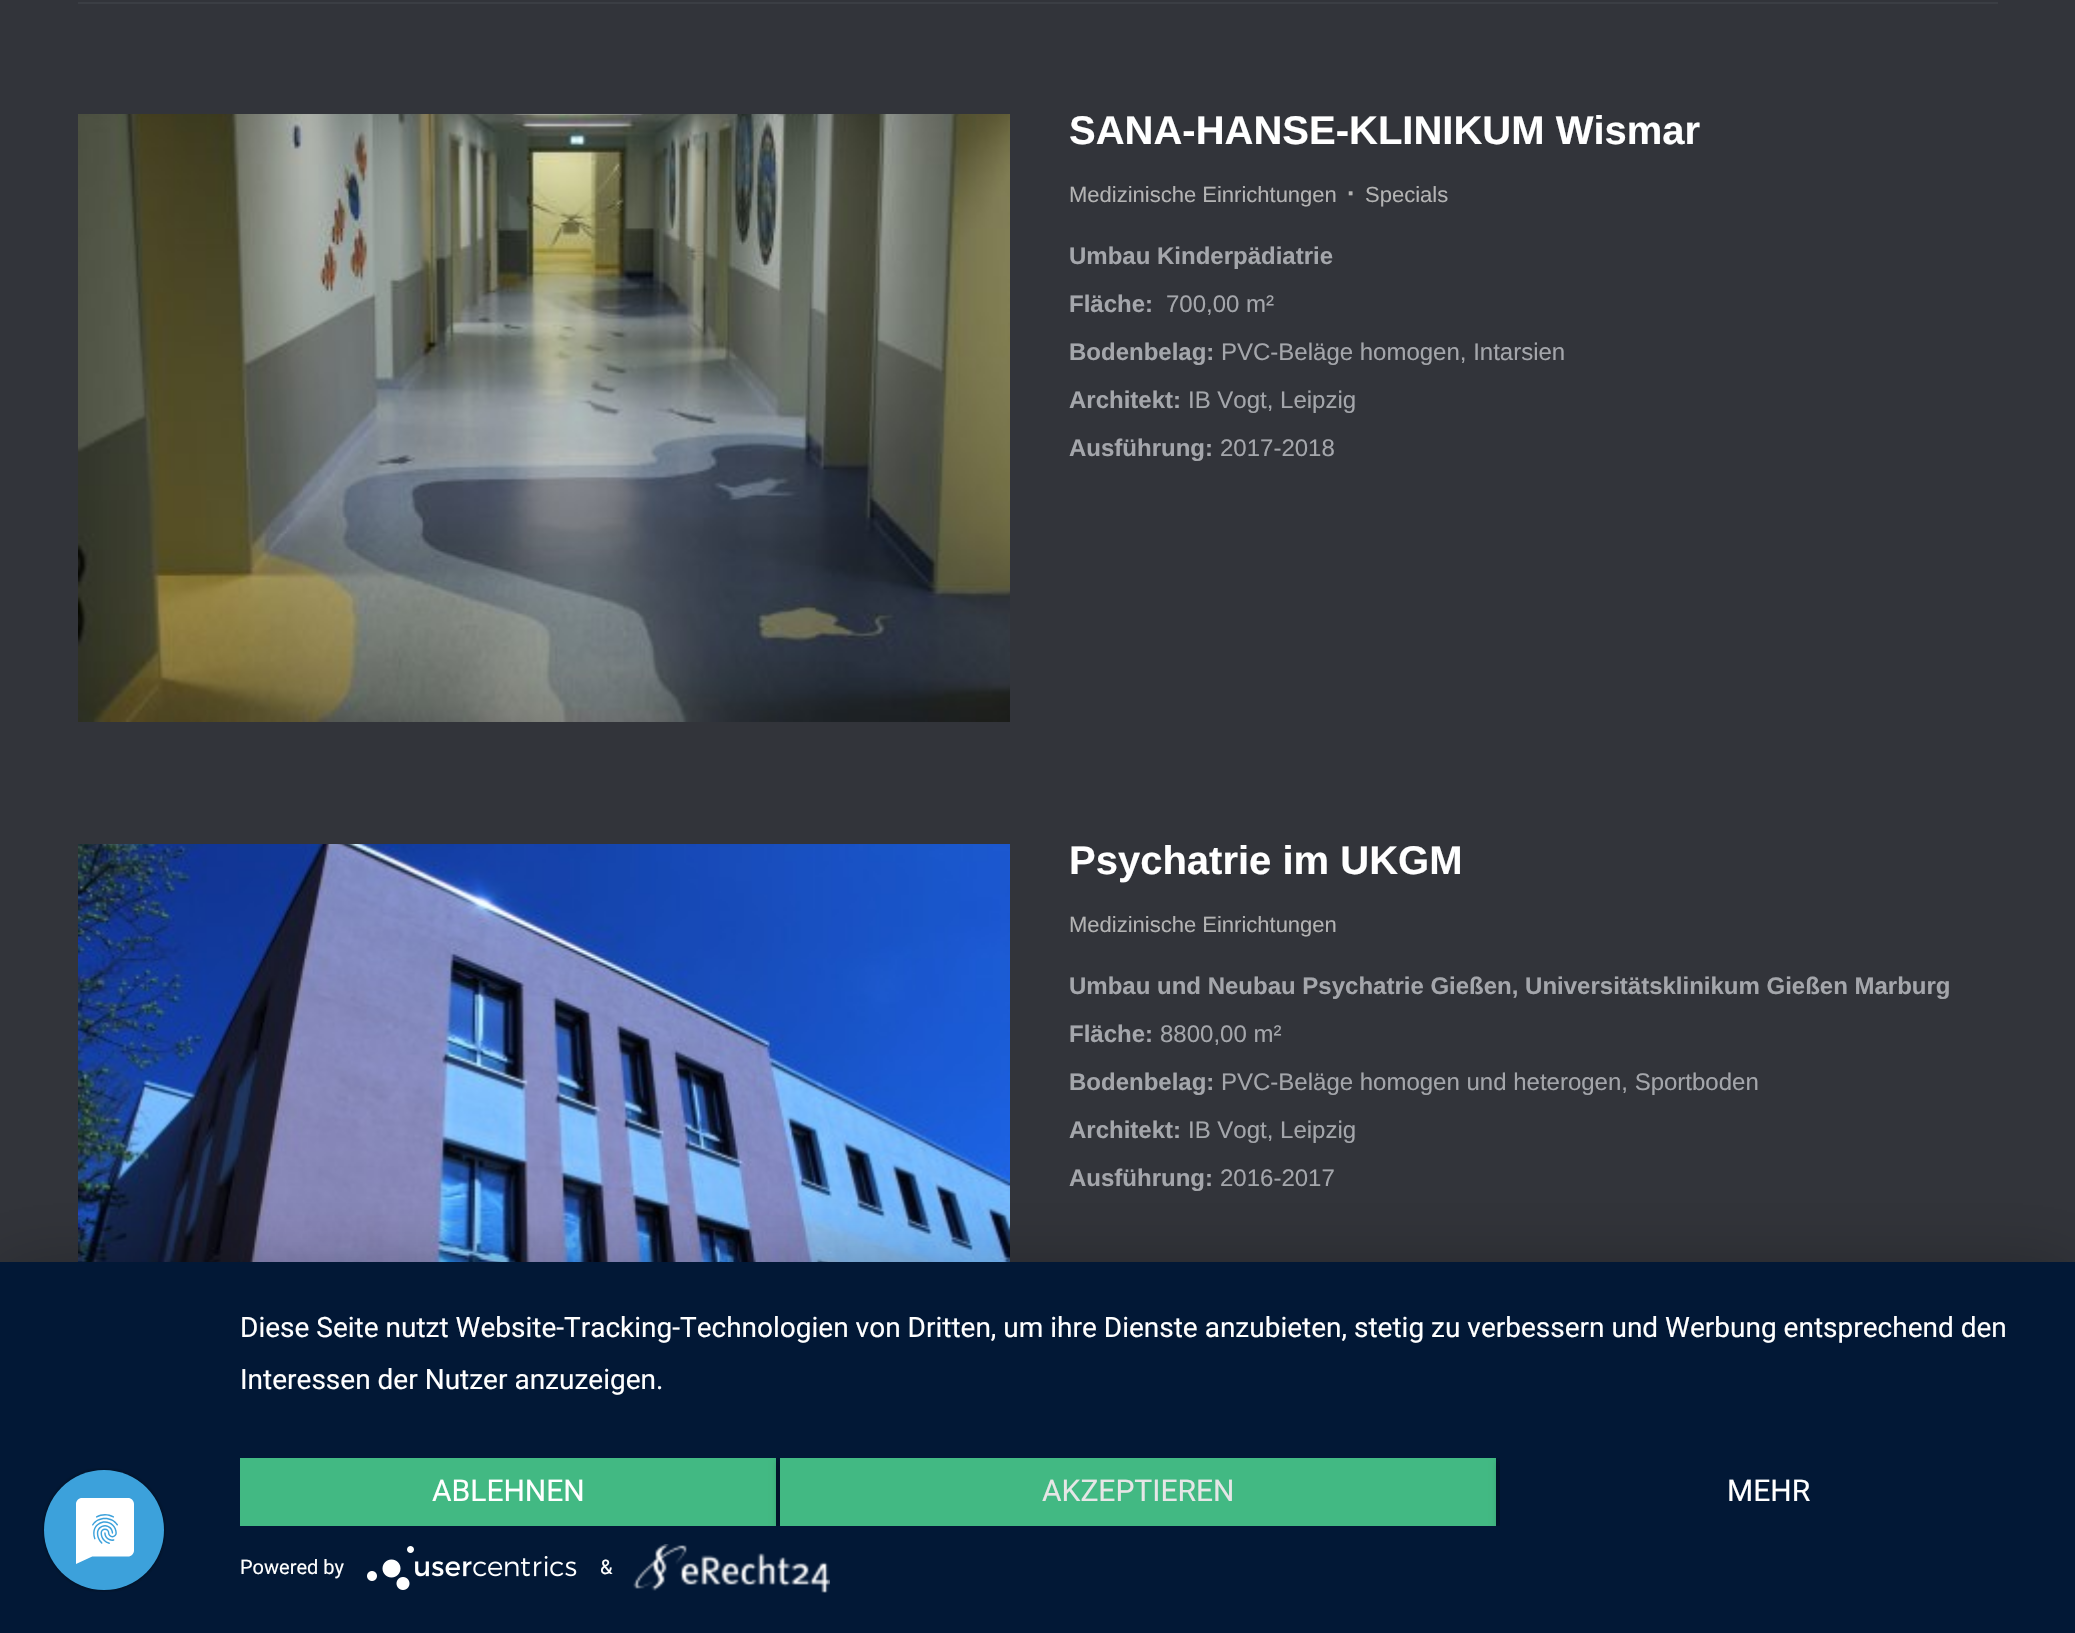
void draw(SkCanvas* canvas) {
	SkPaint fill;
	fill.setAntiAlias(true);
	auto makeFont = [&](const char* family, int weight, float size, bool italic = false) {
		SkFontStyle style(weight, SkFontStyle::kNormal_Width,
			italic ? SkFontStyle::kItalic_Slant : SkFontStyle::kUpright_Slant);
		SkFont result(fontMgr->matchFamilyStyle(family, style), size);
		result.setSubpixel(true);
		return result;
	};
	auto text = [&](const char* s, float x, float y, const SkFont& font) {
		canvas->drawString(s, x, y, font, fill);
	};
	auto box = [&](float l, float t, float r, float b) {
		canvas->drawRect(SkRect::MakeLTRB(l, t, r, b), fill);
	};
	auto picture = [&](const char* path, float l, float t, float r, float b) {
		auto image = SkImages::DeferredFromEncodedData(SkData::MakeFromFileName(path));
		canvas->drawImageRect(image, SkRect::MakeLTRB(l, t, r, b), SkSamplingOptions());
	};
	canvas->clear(0xFF32343A);
	fill.setColor(0xFF3B3E44);
	box(78, 2, 1998, 4);
	picture("image0.png", 78, 114, 1010, 722);
	picture("image1.png", 78, 844, 1010, 1262);
	fill.setColor(0x4D000000);
	fill.setMaskFilter(SkMaskFilter::MakeBlur(kNormal_SkBlurStyle, 36));
	canvas->drawRect(SkRect::MakeLTRB(0, 1274, 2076, 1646), fill);
	fill.setMaskFilter(nullptr);
	fill.setColor(0xFF021836);
	box(0, 1262, 2075, 1633);
	picture("image2.png", 42, 1468, 166, 1592);
	canvas->save();
	canvas->clipRect(SkRect::MakeLTRB(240, 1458, 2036, 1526));
	fill.setColor(0x66000000);
	fill.setMaskFilter(SkMaskFilter::MakeBlur(kNormal_SkBlurStyle, 4));
	canvas->drawRect(SkRect::MakeLTRB(240, 1460, 776, 1528), fill);
	fill.setMaskFilter(nullptr);
	canvas->restore();
	fill.setColor(0xFF42B983);
	box(240, 1458, 776, 1526);
	canvas->save();
	canvas->clipRect(SkRect::MakeLTRB(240, 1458, 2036, 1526));
	fill.setColor(0x66000000);
	fill.setMaskFilter(SkMaskFilter::MakeBlur(kNormal_SkBlurStyle, 4));
	canvas->drawRect(SkRect::MakeLTRB(780, 1460, 1496, 1528), fill);
	fill.setMaskFilter(nullptr);
	canvas->restore();
	fill.setColor(0xFF42B983);
	box(780, 1458, 1496, 1526);
	canvas->save();
	canvas->clipRect(SkRect::MakeLTRB(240, 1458, 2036, 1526));
	fill.setColor(0x66000000);
	fill.setMaskFilter(SkMaskFilter::MakeBlur(kNormal_SkBlurStyle, 4));
	canvas->drawRect(SkRect::MakeLTRB(1500, 1460, 2036, 1528), fill);
	fill.setMaskFilter(nullptr);
	canvas->restore();
	fill.setColor(0xFF021836);
	box(1500, 1458, 2036, 1526);
	picture("image3.png", 367, 1546, 577, 1590);
	picture("image4.png", 633, 1544, 830, 1593);
	auto font1 = makeFont("Liberation Sans", 700, 40);
	fill.setColor(0xFFFFFFFF);
	text("SANA-HANSE-KLINIKUM Wismar", 1069, 144, font1);
	auto font2 = makeFont("Liberation Sans", 400, 22);
	fill.setColor(0xFFB3B3B3);
	text("Medizinische Einrichtungen", 1069, 202, font2);
	auto font3 = makeFont("Liberation Sans", 700, 26);
	text("·", 1347, 202, font3);
	text("Specials", 1365, 202, font2);
	auto font4 = makeFont("Liberation Sans", 700, 24);
	fill.setColor(0xFFA4A6AB);
	text("Umbau Kinderpädiatrie", 1069, 264, font4);
	text("Fläche:", 1069, 312, font4);
	auto font5 = makeFont("Liberation Sans", 400, 24);
	text("700,00 m²", 1166, 312, font5);
	text("Bodenbelag:", 1069, 360, font4);
	text("PVC-Beläge homogen, Intarsien", 1221, 360, font5);
	text("Architekt:", 1069, 408, font4);
	text("IB Vogt, Leipzig", 1188, 408, font5);
	text("Ausführung:", 1069, 456, font4);
	text("2017-2018", 1220, 456, font5);
	fill.setColor(0xFFFFFFFF);
	text("Psychatrie im UKGM", 1069, 874, font1);
	fill.setColor(0xFFB3B3B3);
	text("Medizinische Einrichtungen", 1069, 932, font2);
	fill.setColor(0xFFA4A6AB);
	text("Umbau und Neubau Psychatrie Gießen, Universitätsklinikum Gießen Marburg", 1069, 994, font4);
	text("Fläche:", 1069, 1042, font4);
	text("8800,00 m²", 1160, 1042, font5);
	text("Bodenbelag:", 1069, 1090, font4);
	text("PVC-Beläge homogen und heterogen, Sportboden", 1221, 1090, font5);
	text("Architekt:", 1069, 1138, font4);
	text("IB Vogt, Leipzig", 1188, 1138, font5);
	text("Ausführung:", 1069, 1186, font4);
	text("2016-2017", 1220, 1186, font5);
	auto font6 = makeFont("Roboto", 400, 28);
	fill.setColor(0xFFFFFFFF);
	text("Diese Seite nutzt Website-Tracking-Technologien von Dritten, um ihre Dienste anzubieten, stetig zu verbessern und Werbung entsprechend den", 240, 1337, font6);
	text("Interessen der Nutzer anzuzeigen.", 240, 1389, font6);
	auto font7 = makeFont("Roboto", 400, 30);
	text("ABLEHNEN", 432, 1501, font7);
	fill.setColor(0xFFE6E6E6);
	text("AKZEPTIEREN", 1042, 1501, font7);
	fill.setColor(0xFFFFFFFF);
	text("MEHR", 1727, 1501, font7);
	auto font8 = makeFont("Roboto", 400, 20);
	text("Powered by", 240, 1574, font8);
	text("&", 600, 1574, font8);
}
